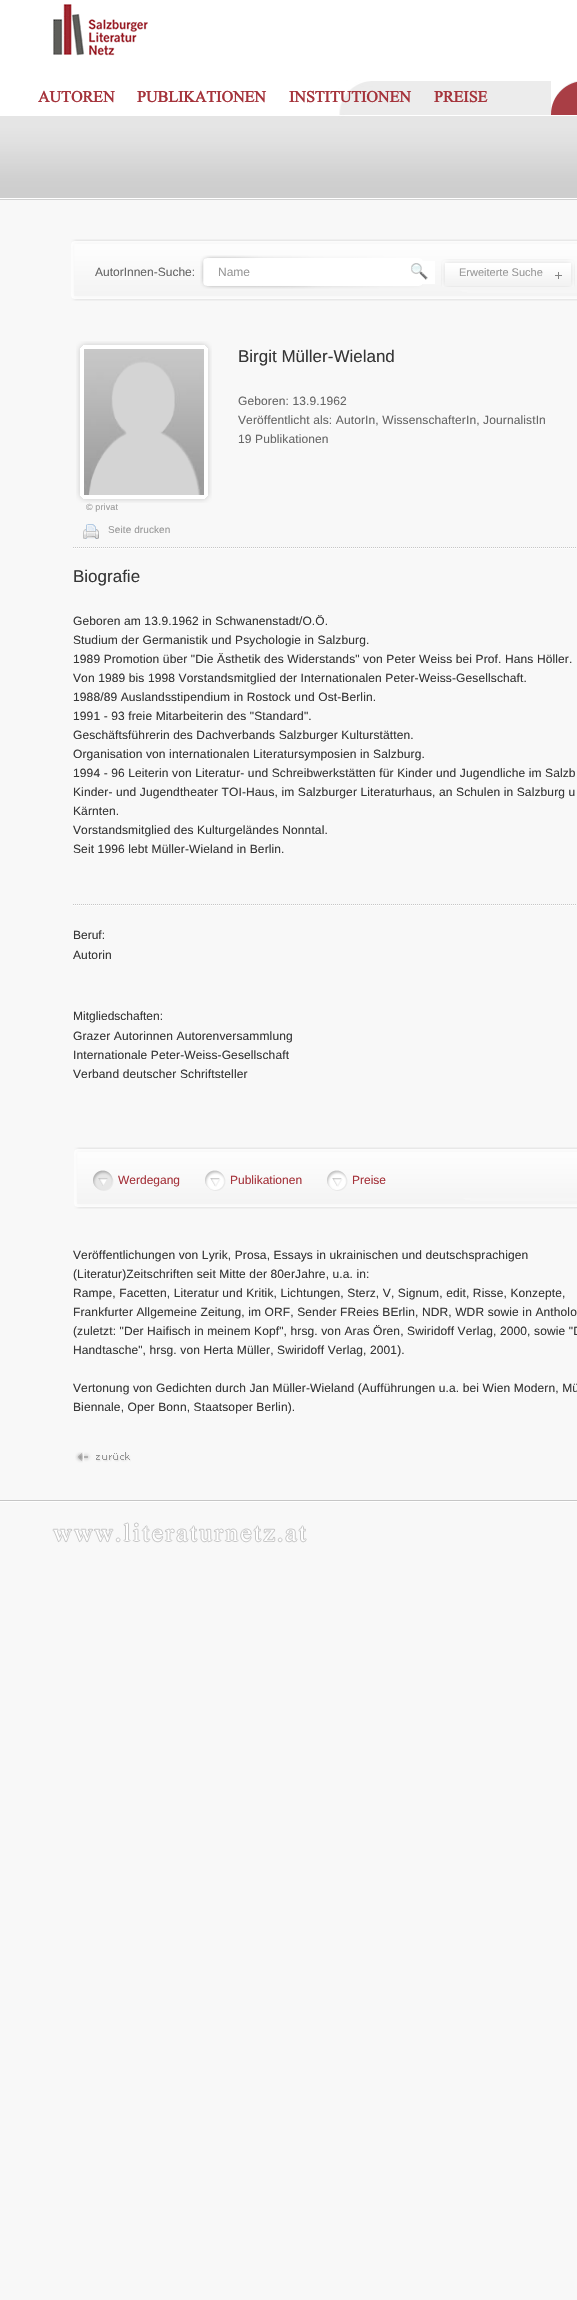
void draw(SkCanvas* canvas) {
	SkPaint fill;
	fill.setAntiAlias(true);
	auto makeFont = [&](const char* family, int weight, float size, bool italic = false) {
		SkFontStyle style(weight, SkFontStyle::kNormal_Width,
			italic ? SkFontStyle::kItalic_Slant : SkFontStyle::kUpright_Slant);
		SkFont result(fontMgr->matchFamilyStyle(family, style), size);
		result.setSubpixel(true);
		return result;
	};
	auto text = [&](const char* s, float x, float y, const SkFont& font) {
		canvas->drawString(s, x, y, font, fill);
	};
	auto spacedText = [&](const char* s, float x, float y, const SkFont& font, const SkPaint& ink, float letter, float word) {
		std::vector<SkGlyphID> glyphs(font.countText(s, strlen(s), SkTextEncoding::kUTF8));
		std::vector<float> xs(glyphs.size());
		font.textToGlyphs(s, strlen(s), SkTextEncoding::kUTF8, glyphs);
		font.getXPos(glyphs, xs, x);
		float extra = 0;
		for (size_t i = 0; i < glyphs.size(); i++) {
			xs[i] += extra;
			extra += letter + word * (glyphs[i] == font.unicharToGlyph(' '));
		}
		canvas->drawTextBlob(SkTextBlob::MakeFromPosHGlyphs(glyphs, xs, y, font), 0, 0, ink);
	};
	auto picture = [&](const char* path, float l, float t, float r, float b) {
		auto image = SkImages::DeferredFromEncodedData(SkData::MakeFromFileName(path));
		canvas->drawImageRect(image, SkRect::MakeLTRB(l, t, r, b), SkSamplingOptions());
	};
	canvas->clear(0xFFF8F8F8);
	picture("image0.png", 0, 0, 577, 200);
	picture("image1.png", 53, 4, 148, 56);
	picture("image2.png", 551, 81, 577, 115);
	picture("image3.png", 71, 239, 577, 301);
	picture("image4.png", 200, 255, 423, 289);
	picture("image5.png", 411, 261, 435, 284);
	picture("image6.png", 441, 259, 575, 287);
	picture("image7.png", 73, 547, 576, 549);
	picture("image8.png", 76, 341, 212, 503);
	picture("image9.png", 84, 349, 204, 495);
	picture("image10.png", 83, 524, 99, 539);
	picture("image7.png", 73, 904, 576, 906);
	picture("image11.png", 74, 1147, 577, 1209);
	picture("image12.png", 93, 1170, 114, 1191);
	picture("image13.png", 205, 1170, 226, 1191);
	picture("image13.png", 327, 1170, 348, 1191);
	picture("image14.png", 75, 1452, 131, 1463);
	picture("image15.png", 0, 1500, 577, 1502);
	picture("image16.png", 52, 1522, 307, 1543);
	auto font1 = makeFont("Times New Roman", 700, 16);
	fill.setColor(0xFFA5333B);
	text("AUTOREN", 38, 102, font1);
	text("PUBLIKATIONEN", 137, 102, font1);
	text("INSTITUTIONEN", 289, 102, font1);
	text("PREISE", 434, 102, font1);
	auto font2 = makeFont("Liberation Sans", 400, 12);
	fill.setColor(0xFF666666);
	text("AutorInnen-Suche:", 95, 276, font2);
	fill.setColor(0xFF999999);
	text("Name", 218, 276, font2);
	auto font3 = makeFont("Liberation Sans", 400, 11);
	text("Erweiterte Suche", 459, 276, font3);
	auto font4 = makeFont("Liberation Sans", 400, 17);
	fill.setColor(0xFF363636);
	text("Birgit Müller-Wieland", 238, 362, font4);
	fill.setColor(0xFF666666);
	spacedText("Geboren: 13.9.1962", 238, 405, font2, fill, 0.12f, 0);
	spacedText("Veröffentlicht als: AutorIn, WissenschafterIn, JournalistIn", 238, 424, font2, fill, 0.12f, 0);
	spacedText("19 Publikationen", 238, 443, font2, fill, 0.12f, 0);
	auto font5 = makeFont("Liberation Sans", 400, 9);
	fill.setColor(0xFF999999);
	spacedText("© privat", 86, 510, font5, fill, 0.12f, 0);
	auto font6 = makeFont("Liberation Sans", 400, 10);
	spacedText("Seite drucken", 108, 533, font6, fill, 0.1f, 0);
	fill.setColor(0xFF363636);
	text("Biografie", 73, 582, font4);
	spacedText("Geboren am 13.9.1962 in Schwanenstadt/O.Ö.", 73, 625, font2, fill, 0.12f, 0);
	spacedText("Studium der Germanistik und Psychologie in Salzburg.", 73, 644, font2, fill, 0.12f, 0);
	spacedText("1989 Promotion über \"Die Ästhetik des Widerstands\" von Peter Weiss bei Prof. Hans Höller.", 73, 663, font2, fill, 0.12f, 0);
	spacedText("Von 1989 bis 1998 Vorstandsmitglied der Internationalen Peter-Weiss-Gesellschaft.", 73, 682, font2, fill, 0.12f, 0);
	spacedText("1988/89 Auslandsstipendium in Rostock und Ost-Berlin.", 73, 701, font2, fill, 0.12f, 0);
	spacedText("1991 - 93 freie Mitarbeiterin des \"Standard\".", 73, 720, font2, fill, 0.12f, 0);
	spacedText("Geschäftsführerin des Dachverbands Salzburger Kulturstätten.", 73, 739, font2, fill, 0.12f, 0);
	spacedText("Organisation von internationalen Literatursymposien in Salzburg.", 73, 758, font2, fill, 0.12f, 0);
	spacedText("1994 - 96 Leiterin von Literatur- und Schreibwerkstätten für Kinder und Jugendliche im Salzb", 73, 777, font2, fill, 0.12f, 0);
	spacedText("Kinder- und Jugendtheater TOI-Haus, im Salzburger Literaturhaus, an Schulen in Salzburg u", 73, 796, font2, fill, 0.12f, 0);
	spacedText("Kärnten.", 73, 815, font2, fill, 0.12f, 0);
	spacedText("Vorstandsmitglied des Kulturgeländes Nonntal.", 73, 834, font2, fill, 0.12f, 0);
	spacedText("Seit 1996 lebt Müller-Wieland in Berlin.", 73, 853, font2, fill, 0.12f, 0);
	text("Beruf:", 73, 939, font2);
	spacedText("Autorin", 73, 959, font2, fill, 0.12f, 0);
	text("Mitgliedschaften:", 73, 1020, font2);
	spacedText("Grazer Autorinnen Autorenversammlung", 73, 1040, font2, fill, 0.12f, 0);
	spacedText("Internationale Peter-Weiss-Gesellschaft", 73, 1059, font2, fill, 0.12f, 0);
	spacedText("Verband deutscher Schriftsteller", 73, 1078, font2, fill, 0.12f, 0);
	fill.setColor(0xFFA5333B);
	text("Werdegang", 118, 1184, font2);
	text("Publikationen", 230, 1184, font2);
	text("Preise", 352, 1184, font2);
	fill.setColor(0xFF363636);
	spacedText("Veröffentlichungen von Lyrik, Prosa, Essays in ukrainischen und deutschsprachigen", 73, 1259, font2, fill, 0.12f, 0);
	spacedText("(Literatur)Zeitschriften seit Mitte der 80erJahre, u.a. in:", 73, 1278, font2, fill, 0.12f, 0);
	spacedText("Rampe, Facetten, Literatur und Kritik, Lichtungen, Sterz, V, Signum, edit, Risse, Konzepte,", 73, 1297, font2, fill, 0.12f, 0);
	spacedText("Frankfurter Allgemeine Zeitung, im ORF, Sender FReies BErlin, NDR, WDR sowie in Antholo", 73, 1316, font2, fill, 0.12f, 0);
	spacedText("(zuletzt: \"Der Haifisch in meinem Kopf\", hrsg. von Aras Ören, Swiridoff Verlag, 2000, sowie \"D", 73, 1335, font2, fill, 0.12f, 0);
	spacedText("Handtasche\", hrsg. von Herta Müller, Swiridoff Verlag, 2001).", 73, 1354, font2, fill, 0.12f, 0);
	spacedText("Vertonung von Gedichten durch Jan Müller-Wieland (Aufführungen u.a. bei Wien Modern, Mü", 73, 1392, font2, fill, 0.12f, 0);
	spacedText("Biennale, Oper Bonn, Staatsoper Berlin).", 73, 1411, font2, fill, 0.12f, 0);
}
